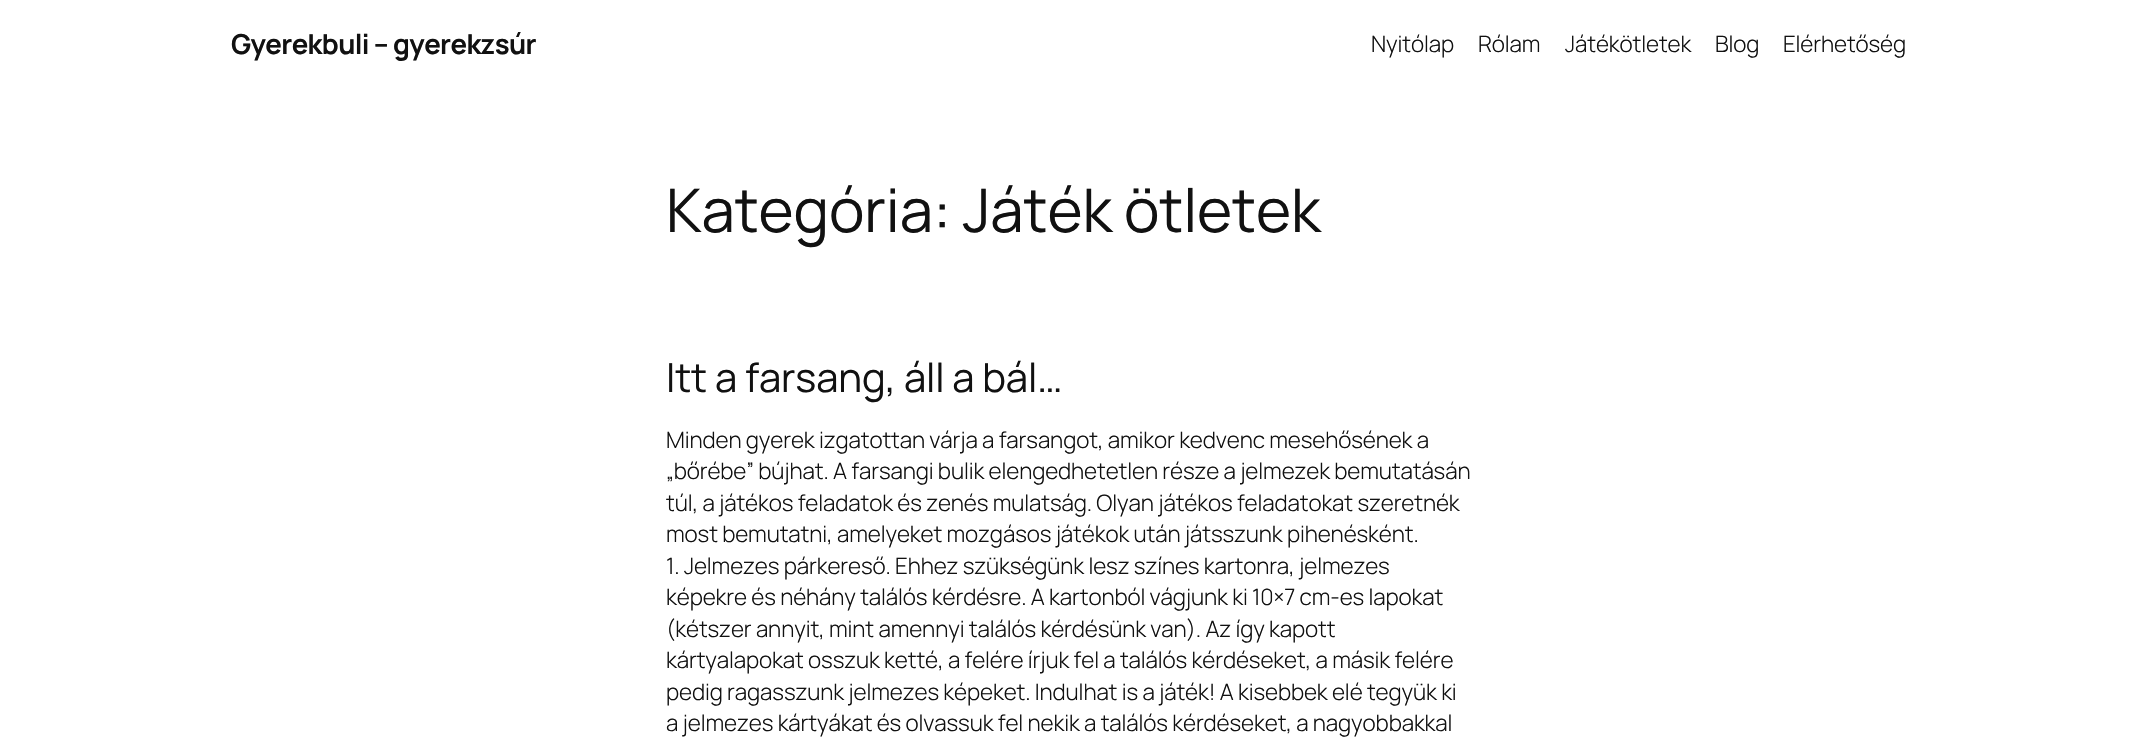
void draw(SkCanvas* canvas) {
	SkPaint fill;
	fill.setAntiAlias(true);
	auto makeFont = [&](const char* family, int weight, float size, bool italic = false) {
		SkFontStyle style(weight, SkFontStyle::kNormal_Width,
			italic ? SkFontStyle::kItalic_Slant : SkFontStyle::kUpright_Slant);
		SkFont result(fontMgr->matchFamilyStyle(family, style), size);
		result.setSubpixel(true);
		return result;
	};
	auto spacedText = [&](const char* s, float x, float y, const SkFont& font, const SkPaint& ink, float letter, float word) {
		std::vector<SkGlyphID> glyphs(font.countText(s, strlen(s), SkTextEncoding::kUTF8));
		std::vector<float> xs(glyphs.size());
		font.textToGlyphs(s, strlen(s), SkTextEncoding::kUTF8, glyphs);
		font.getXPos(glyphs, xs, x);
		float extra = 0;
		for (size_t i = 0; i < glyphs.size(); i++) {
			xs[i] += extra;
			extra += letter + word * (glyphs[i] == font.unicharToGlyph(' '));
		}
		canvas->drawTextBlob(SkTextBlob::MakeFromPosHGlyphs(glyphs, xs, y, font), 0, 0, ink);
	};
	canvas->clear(0xFFFFFFFF);
	auto font1 = makeFont("Manrope", 700, 27.5f);
	fill.setColor(0xFF111111);
	spacedText("Gyerekbuli – gyerekzsúr", 231, 54, font1, fill, -0.6f, 0);
	auto font2 = makeFont("Manrope", 300, 22.5f);
	spacedText("Nyitólap", 1371, 52, font2, fill, -0.12f, 0);
	spacedText("Rólam", 1478, 52, font2, fill, -0.12f, 0);
	spacedText("Játékötletek", 1565, 52, font2, fill, -0.12f, 0);
	spacedText("Blog", 1715, 52, font2, fill, -0.12f, 0);
	spacedText("Elérhetőség", 1783, 52, font2, fill, -0.12f, 0);
	auto font3 = makeFont("Manrope", 400, 60);
	spacedText("Kategória: Játék ötletek", 666, 232, font3, fill, -0.12f, 0);
	auto font4 = makeFont("Manrope", 400, 40);
	spacedText("Itt a farsang, áll a bál…", 666, 392, font4, fill, -0.12f, 0);
	spacedText("Minden gyerek izgatottan várja a farsangot, amikor kedvenc mesehősének a", 666, 448, font2, fill, -0.12f, 0);
	spacedText("„bőrébe” bújhat. A farsangi bulik elengedhetetlen része a jelmezek bemutatásán", 666, 479, font2, fill, -0.12f, 0);
	spacedText("túl, a játékos feladatok és zenés mulatság. Olyan játékos feladatokat szeretnék", 666, 511, font2, fill, -0.12f, 0);
	spacedText("most bemutatni, amelyeket mozgásos játékok után játsszunk pihenésként.", 666, 542, font2, fill, -0.12f, 0);
	spacedText("1. Jelmezes párkereső. Ehhez szükségünk lesz színes kartonra, jelmezes", 666, 574, font2, fill, -0.12f, 0);
	spacedText("képekre és néhány találós kérdésre. A kartonból vágjunk ki 10×7 cm-es lapokat", 666, 605, font2, fill, -0.12f, 0);
	spacedText("(kétszer annyit, mint amennyi találós kérdésünk van). Az így kapott", 666, 637, font2, fill, -0.12f, 0);
	spacedText("kártyalapokat osszuk ketté, a felére írjuk fel a találós kérdéseket, a másik felére", 666, 668, font2, fill, -0.12f, 0);
	spacedText("pedig ragasszunk jelmezes képeket. Indulhat is a játék! A kisebbek elé tegyük ki", 666, 700, font2, fill, -0.12f, 0);
	spacedText("a jelmezes kártyákat és olvassuk fel nekik a találós kérdéseket, a nagyobbakkal", 666, 731, font2, fill, -0.12f, 0);
}
